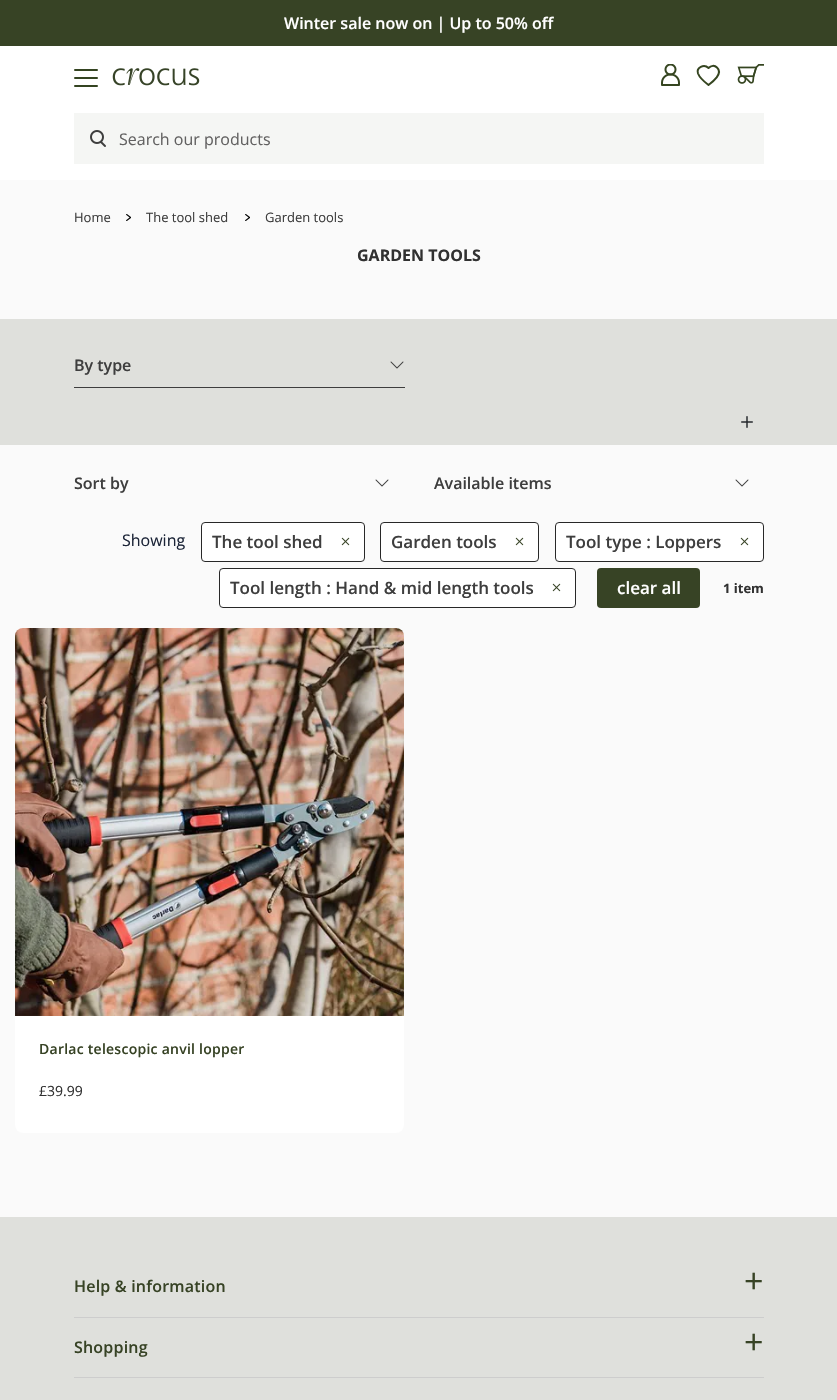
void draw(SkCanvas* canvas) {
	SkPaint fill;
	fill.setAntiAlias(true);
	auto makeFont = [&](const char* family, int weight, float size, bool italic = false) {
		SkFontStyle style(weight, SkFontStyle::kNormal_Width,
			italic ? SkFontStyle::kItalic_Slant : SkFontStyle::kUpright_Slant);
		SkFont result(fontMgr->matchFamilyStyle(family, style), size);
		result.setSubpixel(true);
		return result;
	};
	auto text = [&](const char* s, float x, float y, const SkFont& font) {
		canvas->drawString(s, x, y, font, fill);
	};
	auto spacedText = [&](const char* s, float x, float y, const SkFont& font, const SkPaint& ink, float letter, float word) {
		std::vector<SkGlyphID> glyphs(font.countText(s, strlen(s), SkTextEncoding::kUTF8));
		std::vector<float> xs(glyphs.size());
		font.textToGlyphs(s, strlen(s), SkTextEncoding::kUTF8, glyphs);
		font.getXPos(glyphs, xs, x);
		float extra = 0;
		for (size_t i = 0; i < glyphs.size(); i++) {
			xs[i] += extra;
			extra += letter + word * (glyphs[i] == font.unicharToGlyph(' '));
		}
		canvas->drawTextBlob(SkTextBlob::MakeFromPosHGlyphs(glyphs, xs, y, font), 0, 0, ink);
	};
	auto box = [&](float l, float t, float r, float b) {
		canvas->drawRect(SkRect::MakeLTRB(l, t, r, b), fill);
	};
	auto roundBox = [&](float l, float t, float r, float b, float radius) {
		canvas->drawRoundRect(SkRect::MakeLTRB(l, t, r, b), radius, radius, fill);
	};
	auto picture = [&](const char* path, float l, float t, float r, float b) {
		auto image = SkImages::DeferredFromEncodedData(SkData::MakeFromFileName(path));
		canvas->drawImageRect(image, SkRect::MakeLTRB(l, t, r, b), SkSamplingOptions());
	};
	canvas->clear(0xFFFAFAFA);
	fill.setColor(0xFFFFFFFF);
	box(0, 46, 837, 180);
	fill.setColor(0xFF374325);
	box(0, 0, 837, 46);
	fill.setColor(0xFF344421);
	roundBox(74, 69, 98, 71, 1);
	roundBox(74, 77, 98, 79, 1);
	roundBox(74, 85, 98, 87, 1);
	picture("image0.png", 112, 68, 200, 86);
	picture("image1.png", 661, 64, 680, 86);
	fill.setStyle(SkPaint::kStroke_Style);
	fill.setStrokeWidth(2);
	fill.setStrokeCap(SkPaint::kRound_Cap);
	fill.setStrokeJoin(SkPaint::kRound_Join);
	fill.setColor(0xFF354520);
	canvas->drawPath(SkPathBuilder().moveTo(717, 67.5f).cubicTo(714.5f, 65, 711, 65.5f, 708.5f, 68).cubicTo(704, 63.5f, 696, 67.5f, 698, 73.5f).cubicTo(700, 78.5f, 704.5f, 82, 708.5f, 85).cubicTo(712.5f, 82, 723.5f, 73.5f, 717, 67.5f).close().detach(), fill);
	picture("image2.png", 737, 64, 764, 84);
	fill.setStyle(SkPaint::kFill_Style);
	fill.setColor(0xFFF5F6F4);
	box(74, 113, 764, 164);
	picture("image3.png", 90, 130, 106, 147);
	picture("image4.png", 126, 214, 131, 221);
	picture("image4.png", 245, 214, 250, 221);
	fill.setColor(0xFFDFE0DC);
	box(0, 319, 837, 445);
	fill.setColor(0xFF3E3E3E);
	box(74, 387, 405, 388);
	picture("image5.png", 390, 361, 404, 369);
	picture("image6.png", 741, 416, 753, 428);
	picture("image7.png", 375, 479, 389, 487);
	picture("image7.png", 735, 479, 749, 487);
	fill.setColor(0xFFFFFFFF);
	canvas->drawRoundRect(SkRect::MakeLTRB(201.5f, 522.5f, 364.5f, 561.5f), 3.5f, 3.5f, fill);
	fill.setStyle(SkPaint::kStroke_Style);
	fill.setStrokeWidth(1);
	fill.setStrokeCap(SkPaint::kButt_Cap);
	fill.setStrokeJoin(SkPaint::kMiter_Join);
	fill.setColor(0xFF282828);
	canvas->drawRoundRect(SkRect::MakeLTRB(201.5f, 522.5f, 364.5f, 561.5f), 3.5f, 3.5f, fill);
	picture("image8.png", 341, 537, 350, 546);
	fill.setStyle(SkPaint::kFill_Style);
	fill.setColor(0xFFFFFFFF);
	canvas->drawRoundRect(SkRect::MakeLTRB(380.5f, 522.5f, 538.5f, 561.5f), 3.5f, 3.5f, fill);
	fill.setStyle(SkPaint::kStroke_Style);
	fill.setColor(0xFF282828);
	canvas->drawRoundRect(SkRect::MakeLTRB(380.5f, 522.5f, 538.5f, 561.5f), 3.5f, 3.5f, fill);
	picture("image8.png", 515, 537, 524, 546);
	fill.setStyle(SkPaint::kFill_Style);
	fill.setColor(0xFFFFFFFF);
	canvas->drawRoundRect(SkRect::MakeLTRB(555.5f, 522.5f, 763.5f, 561.5f), 3.5f, 3.5f, fill);
	fill.setStyle(SkPaint::kStroke_Style);
	fill.setColor(0xFF282828);
	canvas->drawRoundRect(SkRect::MakeLTRB(555.5f, 522.5f, 763.5f, 561.5f), 3.5f, 3.5f, fill);
	picture("image8.png", 740, 537, 749, 546);
	fill.setStyle(SkPaint::kFill_Style);
	fill.setColor(0xFFFFFFFF);
	canvas->drawRoundRect(SkRect::MakeLTRB(219.5f, 568.5f, 575.5f, 607.5f), 3.5f, 3.5f, fill);
	fill.setStyle(SkPaint::kStroke_Style);
	fill.setColor(0xFF282828);
	canvas->drawRoundRect(SkRect::MakeLTRB(219.5f, 568.5f, 575.5f, 607.5f), 3.5f, 3.5f, fill);
	picture("image8.png", 552, 583, 561, 592);
	fill.setStyle(SkPaint::kFill_Style);
	fill.setColor(0xFF374325);
	roundBox(597, 568, 700, 608, 4);
	fill.setColor(0xFFFFFFFF);
	roundBox(15, 628, 404, 1133, 8);
	picture("image9.png", 15, 628, 404, 1016);
	fill.setColor(0xFFDFE0DC);
	box(0, 1217, 837, 1400);
	fill.setColor(0xFFCDCDCD);
	box(74, 1317, 764, 1318);
	box(74, 1377, 764, 1378);
	auto font1 = makeFont("Open Sans", 600, 16);
	fill.setColor(0xFFFFFFFF);
	text("Winter sale now on | Up to 50% off", 284, 29, font1);
	auto font2 = makeFont("Open Sans", 400, 16);
	fill.setColor(0xFF626161);
	text("Search our products", 119, 145, font2);
	auto font3 = makeFont("Open Sans", 400, 13);
	fill.setColor(0xFF3E3E3E);
	text("Home", 74, 222, font3);
	text("The tool shed", 146, 222, font3);
	text("Garden tools", 265, 222, font3);
	auto font4 = makeFont("Open Sans", 700, 16);
	fill.setColor(0xFF313131);
	text("GARDEN TOOLS", 357, 261, font4);
	fill.setColor(0xFF3E3E3E);
	text("By type", 74, 371, font1);
	text("Sort by", 74, 489, font1);
	text("Available items", 434, 489, font1);
	fill.setColor(0xFF1B2437);
	text("Showing", 122, 546, font2);
	auto font5 = makeFont("Open Sans", 600, 17);
	fill.setColor(0xFF3E3E3E);
	text("The tool shed", 212, 548, font5);
	text("Garden tools", 391, 548, font5);
	text("Tool type : Loppers", 566, 548, font5);
	text("Tool length : Hand & mid length tools", 230, 594, font5);
	fill.setColor(0xFFFFFFFF);
	text("clear all", 617, 594, font5);
	auto font6 = makeFont("Open Sans", 700, 13);
	fill.setColor(0xFF313131);
	text("1 item", 723, 593, font6);
	auto font7 = makeFont("Open Sans", 600, 14);
	fill.setColor(0xFF374325);
	spacedText("Darlac telescopic anvil lopper", 39, 1054, font7, fill, 0.25f, 0);
	auto font8 = makeFont("Open Sans", 400, 14);
	fill.setColor(0xFF313131);
	text("£39.99", 39, 1096, font8);
	fill.setColor(0xFF374325);
	spacedText("Help & information", 74, 1292, font1, fill, 0.2f, 0);
	auto font9 = makeFont("Open Sans", 400, 34);
	text("+", 744, 1293, font9);
	spacedText("Shopping", 74, 1353, font1, fill, 0.2f, 0);
	text("+", 744, 1354, font9);
}
